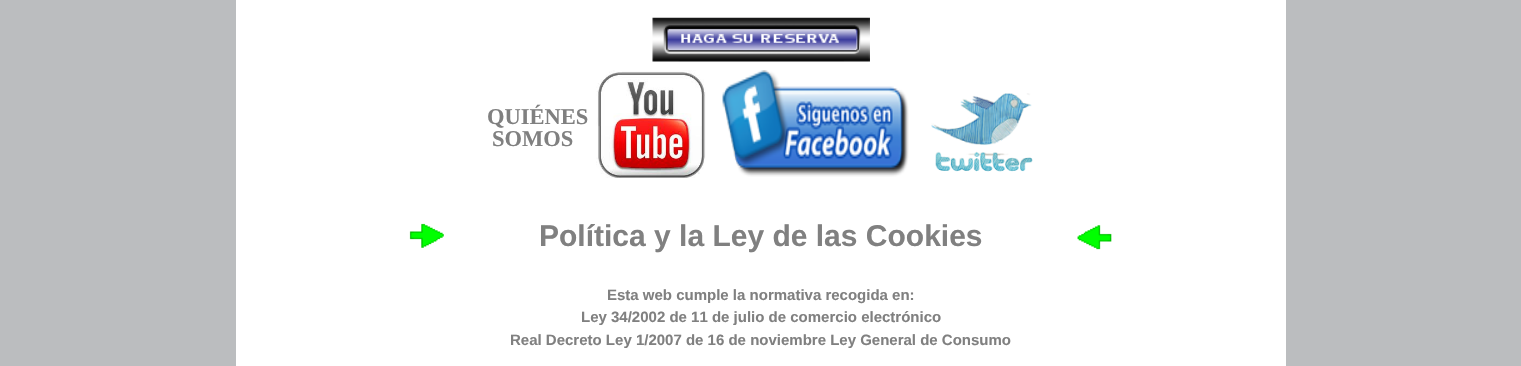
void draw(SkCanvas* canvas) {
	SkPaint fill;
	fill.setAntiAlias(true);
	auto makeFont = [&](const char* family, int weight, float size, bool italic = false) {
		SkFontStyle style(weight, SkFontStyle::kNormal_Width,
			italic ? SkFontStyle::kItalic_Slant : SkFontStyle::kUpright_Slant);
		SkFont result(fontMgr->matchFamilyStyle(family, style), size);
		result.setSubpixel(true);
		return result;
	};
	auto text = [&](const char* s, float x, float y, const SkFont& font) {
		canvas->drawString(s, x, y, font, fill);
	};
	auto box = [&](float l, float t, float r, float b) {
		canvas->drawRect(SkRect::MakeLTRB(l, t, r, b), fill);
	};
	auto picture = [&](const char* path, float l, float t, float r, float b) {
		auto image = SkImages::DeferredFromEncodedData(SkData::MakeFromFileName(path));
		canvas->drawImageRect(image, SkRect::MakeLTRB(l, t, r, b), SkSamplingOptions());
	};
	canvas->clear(0xFFBBBDBF);
	fill.setColor(0xFFFFFFFF);
	box(236, 0, 1286, 366);
	picture("image0.png", 652, 17, 870, 62);
	picture("image1.png", 596, 70, 706, 178);
	picture("image2.png", 722, 70, 909, 177);
	picture("image3.png", 931, 93, 1033, 172);
	picture("image4.png", 409, 223, 444, 248);
	picture("image5.png", 1077, 225, 1112, 250);
	auto font1 = makeFont("Liberation Serif", 700, 22.5f);
	fill.setColor(0xFF808080);
	text("QUIÉNES", 487, 124, font1);
	text("SOMOS", 492, 146, font1);
	auto font2 = makeFont("Liberation Sans", 700, 30);
	text("Política y la Ley de las Cookies", 539, 246, font2);
	auto font3 = makeFont("Liberation Sans", 700, 15);
	text("Esta web cumple la normativa recogida en:", 607, 300, font3);
	text("Ley 34/2002 de 11 de julio de comercio electrónico", 581, 322, font3);
	text("Real Decreto Ley 1/2007 de 16 de noviembre Ley General de Consumo", 510, 345, font3);
}
